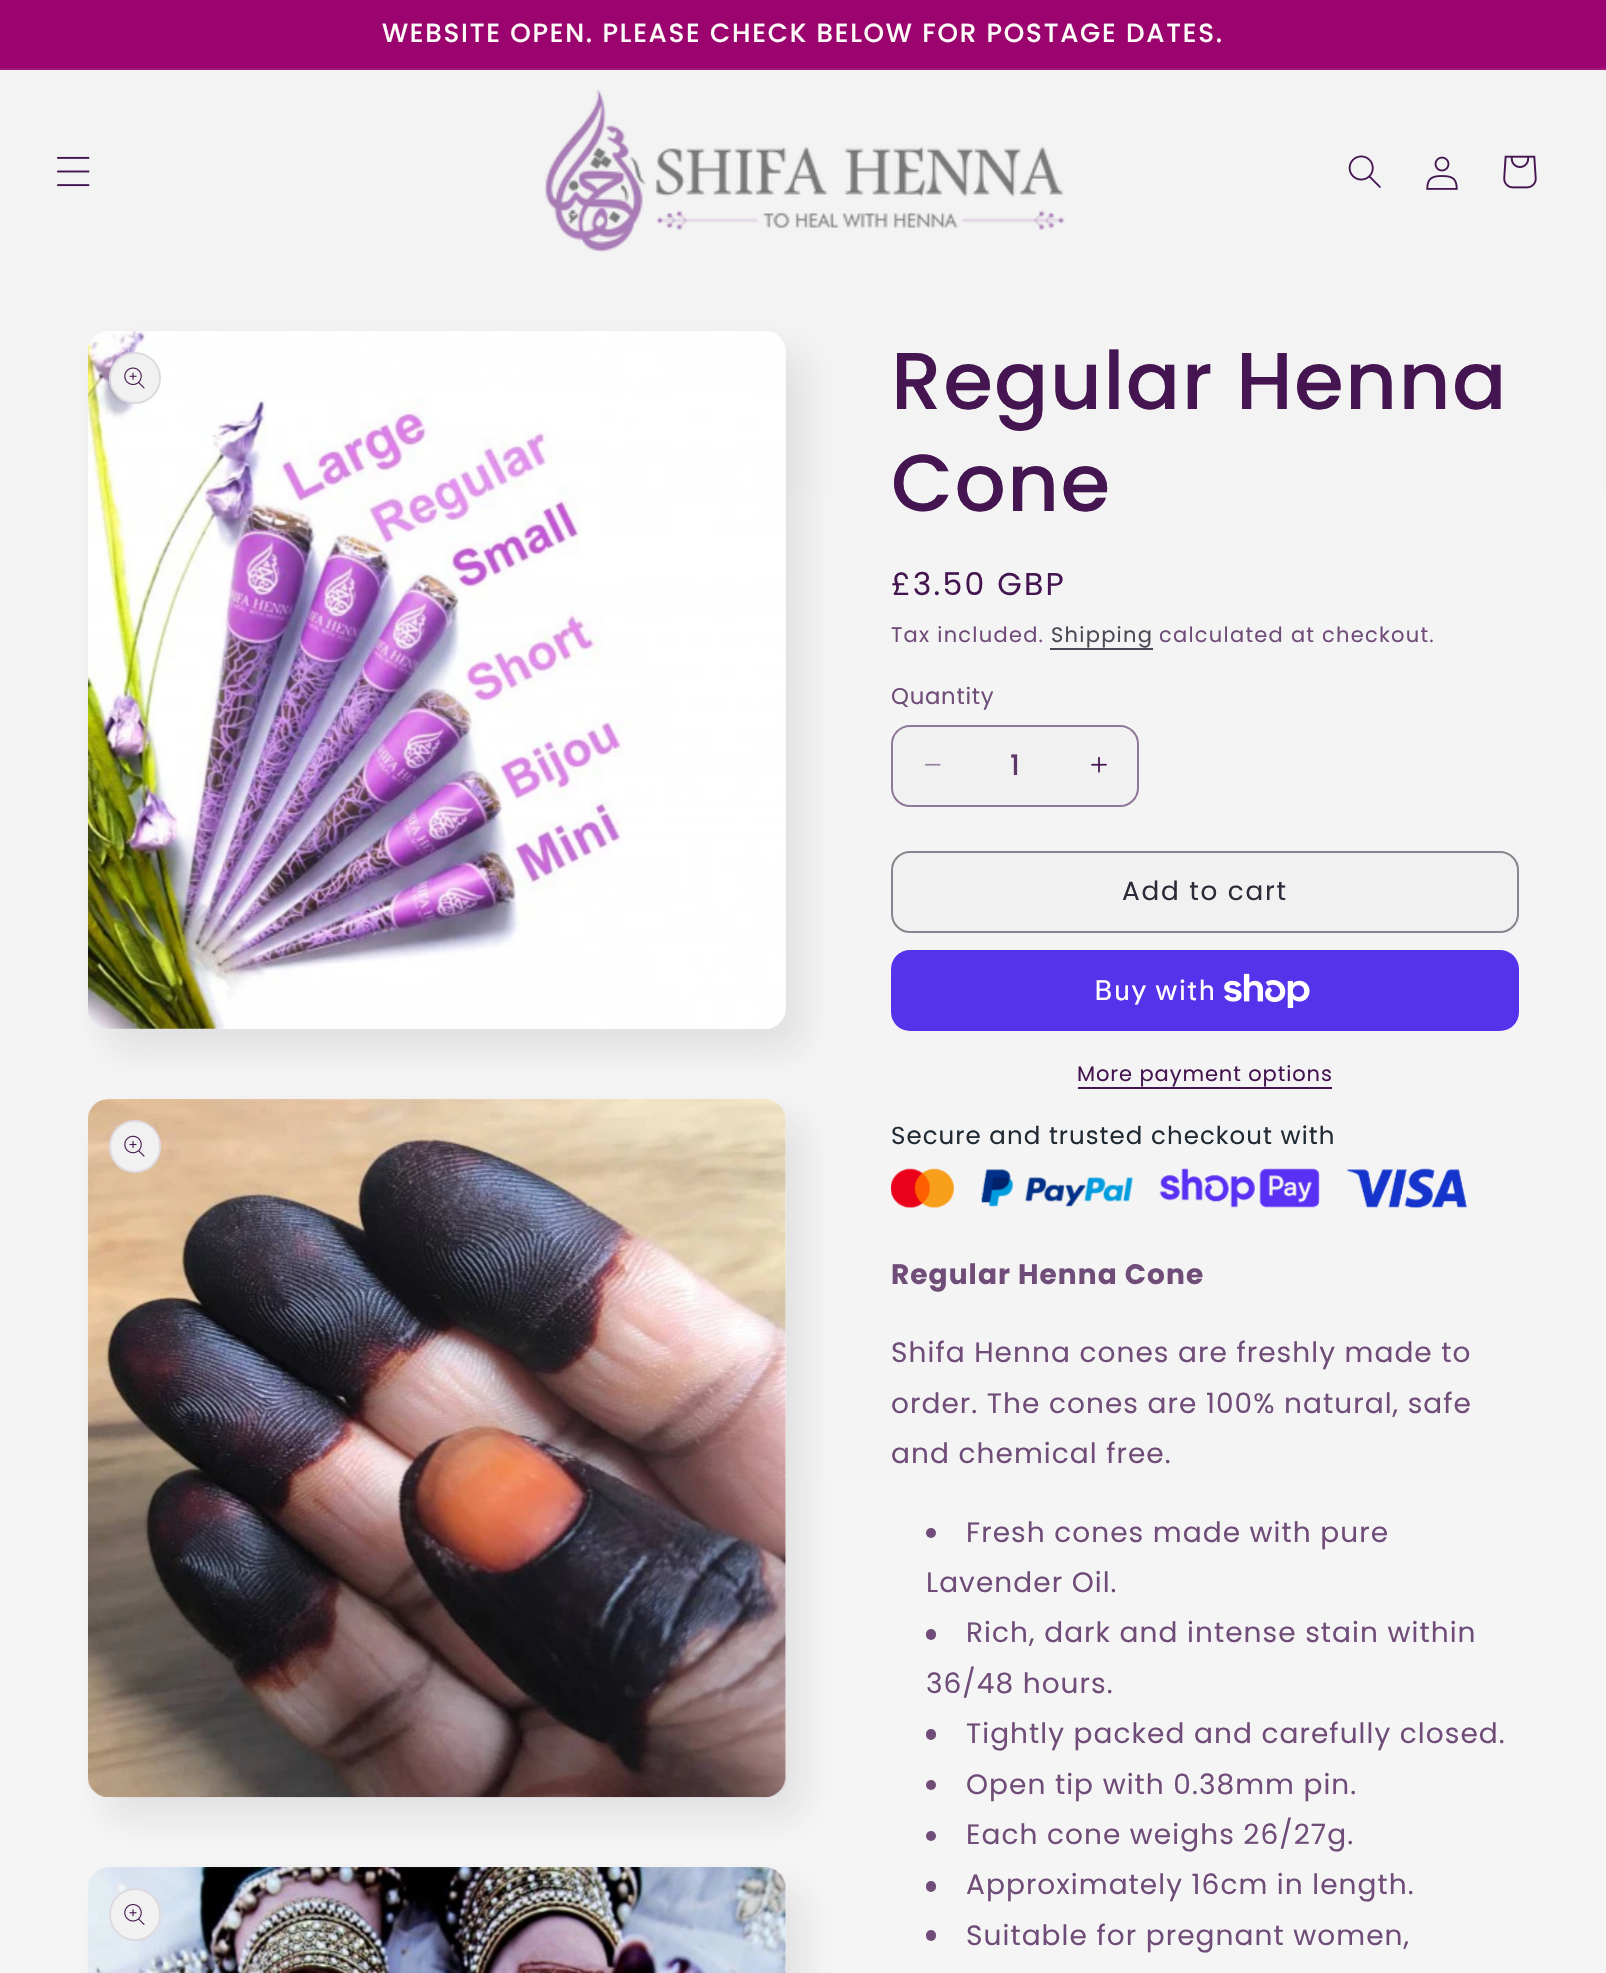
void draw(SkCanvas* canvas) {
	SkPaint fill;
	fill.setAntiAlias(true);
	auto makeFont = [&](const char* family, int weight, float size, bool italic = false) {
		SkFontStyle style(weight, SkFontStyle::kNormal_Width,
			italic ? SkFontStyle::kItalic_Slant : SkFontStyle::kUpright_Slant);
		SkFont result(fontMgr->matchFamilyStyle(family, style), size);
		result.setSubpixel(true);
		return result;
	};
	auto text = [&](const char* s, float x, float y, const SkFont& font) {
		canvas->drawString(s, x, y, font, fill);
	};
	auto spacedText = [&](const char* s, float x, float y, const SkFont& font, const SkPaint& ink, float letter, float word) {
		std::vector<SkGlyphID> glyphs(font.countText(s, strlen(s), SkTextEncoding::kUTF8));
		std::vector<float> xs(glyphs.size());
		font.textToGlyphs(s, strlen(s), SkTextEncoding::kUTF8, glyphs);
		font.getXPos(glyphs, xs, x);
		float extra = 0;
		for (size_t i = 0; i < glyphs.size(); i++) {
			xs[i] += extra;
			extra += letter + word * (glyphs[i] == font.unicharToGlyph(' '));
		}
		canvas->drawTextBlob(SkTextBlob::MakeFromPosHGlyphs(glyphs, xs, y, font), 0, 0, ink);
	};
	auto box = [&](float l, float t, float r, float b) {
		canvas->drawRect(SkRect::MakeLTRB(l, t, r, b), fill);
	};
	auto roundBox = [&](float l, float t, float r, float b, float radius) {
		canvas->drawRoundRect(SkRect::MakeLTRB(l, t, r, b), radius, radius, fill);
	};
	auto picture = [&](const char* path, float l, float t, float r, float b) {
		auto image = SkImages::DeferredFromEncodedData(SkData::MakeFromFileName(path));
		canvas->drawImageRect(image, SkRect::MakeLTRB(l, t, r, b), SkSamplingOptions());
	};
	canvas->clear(0xFFFFFFFF);
	{
		const SkColor colors[] = {0xFFF3F3F3, 0xFFF5F5F5};
		const float stops[] = {0, 1};
		const SkPoint ends[] = {{803, 0}, {803, 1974}};
		fill.setShader(SkGradientShader::MakeLinear(ends, colors, stops, 2, SkTileMode::kClamp));
		fill.setAlpha(255);
	}
	box(0, 70, 1606, 1973);
	fill.setShader(nullptr);
	fill.setColor(0xFF9B046F);
	box(0, 0, 1606, 68);
	fill.setColor(0xFFA3187A);
	box(0, 68, 1606, 70);
	picture("image0.png", 57, 156, 90, 187);
	picture("image1.png", 544, 89, 1065, 253);
	picture("image2.png", 1348, 155, 1381, 188);
	picture("image3.png", 1426, 156, 1458, 190);
	picture("image4.png", 1503, 155, 1537, 189);
	fill.setColor(0x1A2E2A39);
	fill.setMaskFilter(SkMaskFilter::MakeBlur(kNormal_SkBlurStyle, 17.5f));
	canvas->drawRoundRect(SkRect::MakeLTRB(105, 352, 803, 1050), 21, 21, fill);
	fill.setMaskFilter(nullptr);
	{
		const SkColor colors[] = {0xFFF3F3F3, 0xFFF5F5F5};
		const float stops[] = {0, 1};
		const SkPoint ends[] = {{803, 0}, {803, 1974}};
		fill.setShader(SkGradientShader::MakeLinear(ends, colors, stops, 2, SkTileMode::kClamp));
		fill.setAlpha(255);
	}
	roundBox(88, 331, 786, 1029, 21);
	picture("image5.png", 88, 331, 786, 1029);
	fill.setShader(nullptr);
	fill.setColor(0xFFF1F1F1);
	canvas->drawCircle(135, 378, 26, fill);
	fill.setStyle(SkPaint::kStroke_Style);
	fill.setStrokeWidth(2);
	fill.setColor(0x1A441550);
	canvas->drawCircle(135, 378, 25, fill);
	picture("image6.png", 124, 367, 145, 389);
	fill.setStyle(SkPaint::kFill_Style);
	fill.setColor(0x1A2E2A39);
	fill.setMaskFilter(SkMaskFilter::MakeBlur(kNormal_SkBlurStyle, 17.5f));
	canvas->drawRoundRect(SkRect::MakeLTRB(105, 1120, 803, 1818), 21, 21, fill);
	fill.setMaskFilter(nullptr);
	{
		const SkColor colors[] = {0xFFF3F3F3, 0xFFF5F5F5};
		const float stops[] = {0, 1};
		const SkPoint ends[] = {{803, 0}, {803, 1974}};
		fill.setShader(SkGradientShader::MakeLinear(ends, colors, stops, 2, SkTileMode::kClamp));
		fill.setAlpha(255);
	}
	roundBox(88, 1099, 786, 1797, 21);
	picture("image7.png", 88, 1099, 786, 1798);
	fill.setShader(nullptr);
	fill.setColor(0xFFF1F1F1);
	roundBox(109, 1120, 161, 1173, 26);
	fill.setStyle(SkPaint::kStroke_Style);
	fill.setColor(0x1A441550);
	canvas->drawRoundRect(SkRect::MakeLTRB(110, 1121, 160, 1172), 25, 25, fill);
	picture("image8.png", 124, 1135, 145, 1157);
	fill.setStyle(SkPaint::kFill_Style);
	fill.setColor(0x1A2E2A39);
	fill.setMaskFilter(SkMaskFilter::MakeBlur(kNormal_SkBlurStyle, 17.5f));
	canvas->drawRoundRect(SkRect::MakeLTRB(105, 1888, 803, 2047), 21, 21, fill);
	fill.setMaskFilter(nullptr);
	{
		const SkColor colors[] = {0xFFF3F3F3, 0xFFF5F5F5};
		const float stops[] = {0, 1};
		const SkPoint ends[] = {{803, 0}, {803, 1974}};
		fill.setShader(SkGradientShader::MakeLinear(ends, colors, stops, 2, SkTileMode::kClamp));
		fill.setAlpha(255);
	}
	canvas->drawPath(SkPathBuilder().moveTo(109, 1867).lineTo(765, 1867).cubicTo(776.5f, 1867, 786, 1876.5f, 786, 1888).lineTo(786, 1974).lineTo(88, 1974).lineTo(88, 1888).cubicTo(88, 1876.5f, 97.5f, 1867, 109, 1867).close().detach(), fill);
	picture("image9.png", 88, 1867, 786, 1973);
	fill.setShader(nullptr);
	fill.setColor(0xFFF1F1F1);
	roundBox(109, 1888, 161, 1941, 26);
	fill.setStyle(SkPaint::kStroke_Style);
	fill.setColor(0x1A441550);
	canvas->drawRoundRect(SkRect::MakeLTRB(110, 1889, 160, 1940), 25, 25, fill);
	picture("image10.png", 124, 1904, 145, 1925);
	fill.setStyle(SkPaint::kFill_Style);
	fill.setColor(0xFF4C4855);
	box(1050, 648, 1153, 650);
	fill.setColor(0xFFF1F1F1);
	roundBox(891, 725, 1139, 807, 19);
	picture("image11.png", 925, 763, 941, 766);
	picture("image12.png", 1091, 756, 1107, 773);
	fill.setStyle(SkPaint::kStroke_Style);
	fill.setColor(0xFF927898);
	canvas->drawRoundRect(SkRect::MakeLTRB(892, 726, 1138, 806), 18, 18, fill);
	fill.setStyle(SkPaint::kFill_Style);
	fill.setColor(0xFFF1F1F1);
	roundBox(891, 851, 1519, 933, 19);
	fill.setStyle(SkPaint::kStroke_Style);
	fill.setColor(0xFF86848C);
	canvas->drawRoundRect(SkRect::MakeLTRB(892, 852, 1518, 932), 18, 18, fill);
	fill.setStyle(SkPaint::kFill_Style);
	fill.setColor(0xFF5433EB);
	roundBox(891, 950, 1519, 1031, 19);
	picture("image13.png", 1224, 973, 1310, 1008);
	fill.setColor(0xFF441550);
	box(1078, 1087, 1332, 1089);
	picture("image14.png", 891, 1168, 954, 1208);
	picture("image15.png", 981, 1169, 1133, 1207);
	picture("image16.png", 1159, 1168, 1320, 1208);
	picture("image17.png", 1346, 1168, 1467, 1208);
	fill.setColor(0xFF704D79);
	canvas->drawCircle(931, 1533, 5, fill);
	roundBox(926, 1629, 936, 1640, 5);
	roundBox(926, 1729, 936, 1740, 5);
	canvas->drawCircle(931, 1785, 5, fill);
	canvas->drawCircle(931, 1836, 5, fill);
	roundBox(926, 1881, 936, 1892, 5);
	roundBox(926, 1930, 936, 1941, 5);
	auto font1 = makeFont("Poppins", 500, 26.15f);
	fill.setColor(0xFFFDFBF7);
	spacedText("WEBSITE OPEN. PLEASE CHECK BELOW FOR POSTAGE DATES.", 382, 42, font1, fill, 1.75f, 0);
	auto font2 = makeFont("Poppins", 500, 80.5f);
	fill.setColor(0xFF441550);
	spacedText("Regular Henna", 891, 409, font2, fill, 1.25f, 0);
	spacedText("Cone", 891, 511, font2, fill, 1.25f, 0);
	auto font3 = makeFont("Poppins", 400, 31.5f);
	spacedText("£3.50 GBP", 891, 595, font3, fill, 2.25f, 0);
	auto font4 = makeFont("Poppins", 400, 21);
	fill.setColor(0xFF704D79);
	spacedText("Tax included.", 891, 642, font4, fill, 1.25f, 0);
	fill.setColor(0xFF4C4855);
	spacedText("Shipping", 1051, 642, font4, fill, 1.25f, 0);
	fill.setColor(0xFF704D79);
	spacedText("calculated at checkout.", 1159, 642, font4, fill, 1.25f, 0);
	auto font5 = makeFont("Poppins", 400, 22.75f);
	spacedText("Quantity", 891, 704, font5, fill, 0.75f, 0);
	auto font6 = makeFont("Poppins", 500, 28);
	fill.setColor(0xFF5E3668);
	text("1", 1010, 775, font6);
	auto font7 = makeFont("Poppins", 400, 26.25f);
	fill.setColor(0xFF2E2A39);
	spacedText("Add to cart", 1122, 900, font7, fill, 1.75f, 0);
	auto font8 = makeFont("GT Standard", 400, 28);
	fill.setColor(0xFFFFFFFF);
	spacedText("Buy with", 1094, 1000, font8, fill, 1.05f, 0);
	fill.setColor(0xFF441550);
	spacedText("More payment options", 1077, 1081, font4, fill, 0.9f, 0);
	auto font9 = makeFont("Poppins", 400, 24.5f);
	fill.setColor(0xFF212B35);
	spacedText("Secure and trusted checkout with", 891, 1144, font9, fill, 1.05f, 0);
	auto font10 = makeFont("Poppins", 700, 28);
	fill.setColor(0xFF704D79);
	spacedText("Regular Henna Cone", 891, 1284, font10, fill, 1.05f, 0);
	auto font11 = makeFont("Poppins", 400, 28);
	spacedText("Shifa Henna cones are freshly made to", 891, 1362, font11, fill, 1.05f, 0);
	spacedText("order. The cones are 100% natural, safe", 891, 1413, font11, fill, 1.05f, 0);
	spacedText("and chemical free.", 891, 1463, font11, fill, 1.05f, 0);
	spacedText("Fresh cones made with pure", 966, 1542, font11, fill, 1.05f, 0);
	spacedText("Lavender Oil.", 926, 1592, font11, fill, 1.05f, 0);
	spacedText("Rich, dark and intense stain within", 966, 1642, font11, fill, 1.05f, 0);
	spacedText("36/48 hours.", 926, 1693, font11, fill, 1.05f, 0);
	spacedText("Tightly packed and carefully closed.", 966, 1743, font11, fill, 1.05f, 0);
	spacedText("Open tip with 0.38mm pin.", 966, 1794, font11, fill, 1.05f, 0);
	spacedText("Each cone weighs 26/27g.", 966, 1844, font11, fill, 1.05f, 0);
	spacedText("Approximately 16cm in length.", 966, 1894, font11, fill, 1.05f, 0);
	spacedText("Suitable for pregnant women,", 966, 1945, font11, fill, 1.05f, 0);
}
